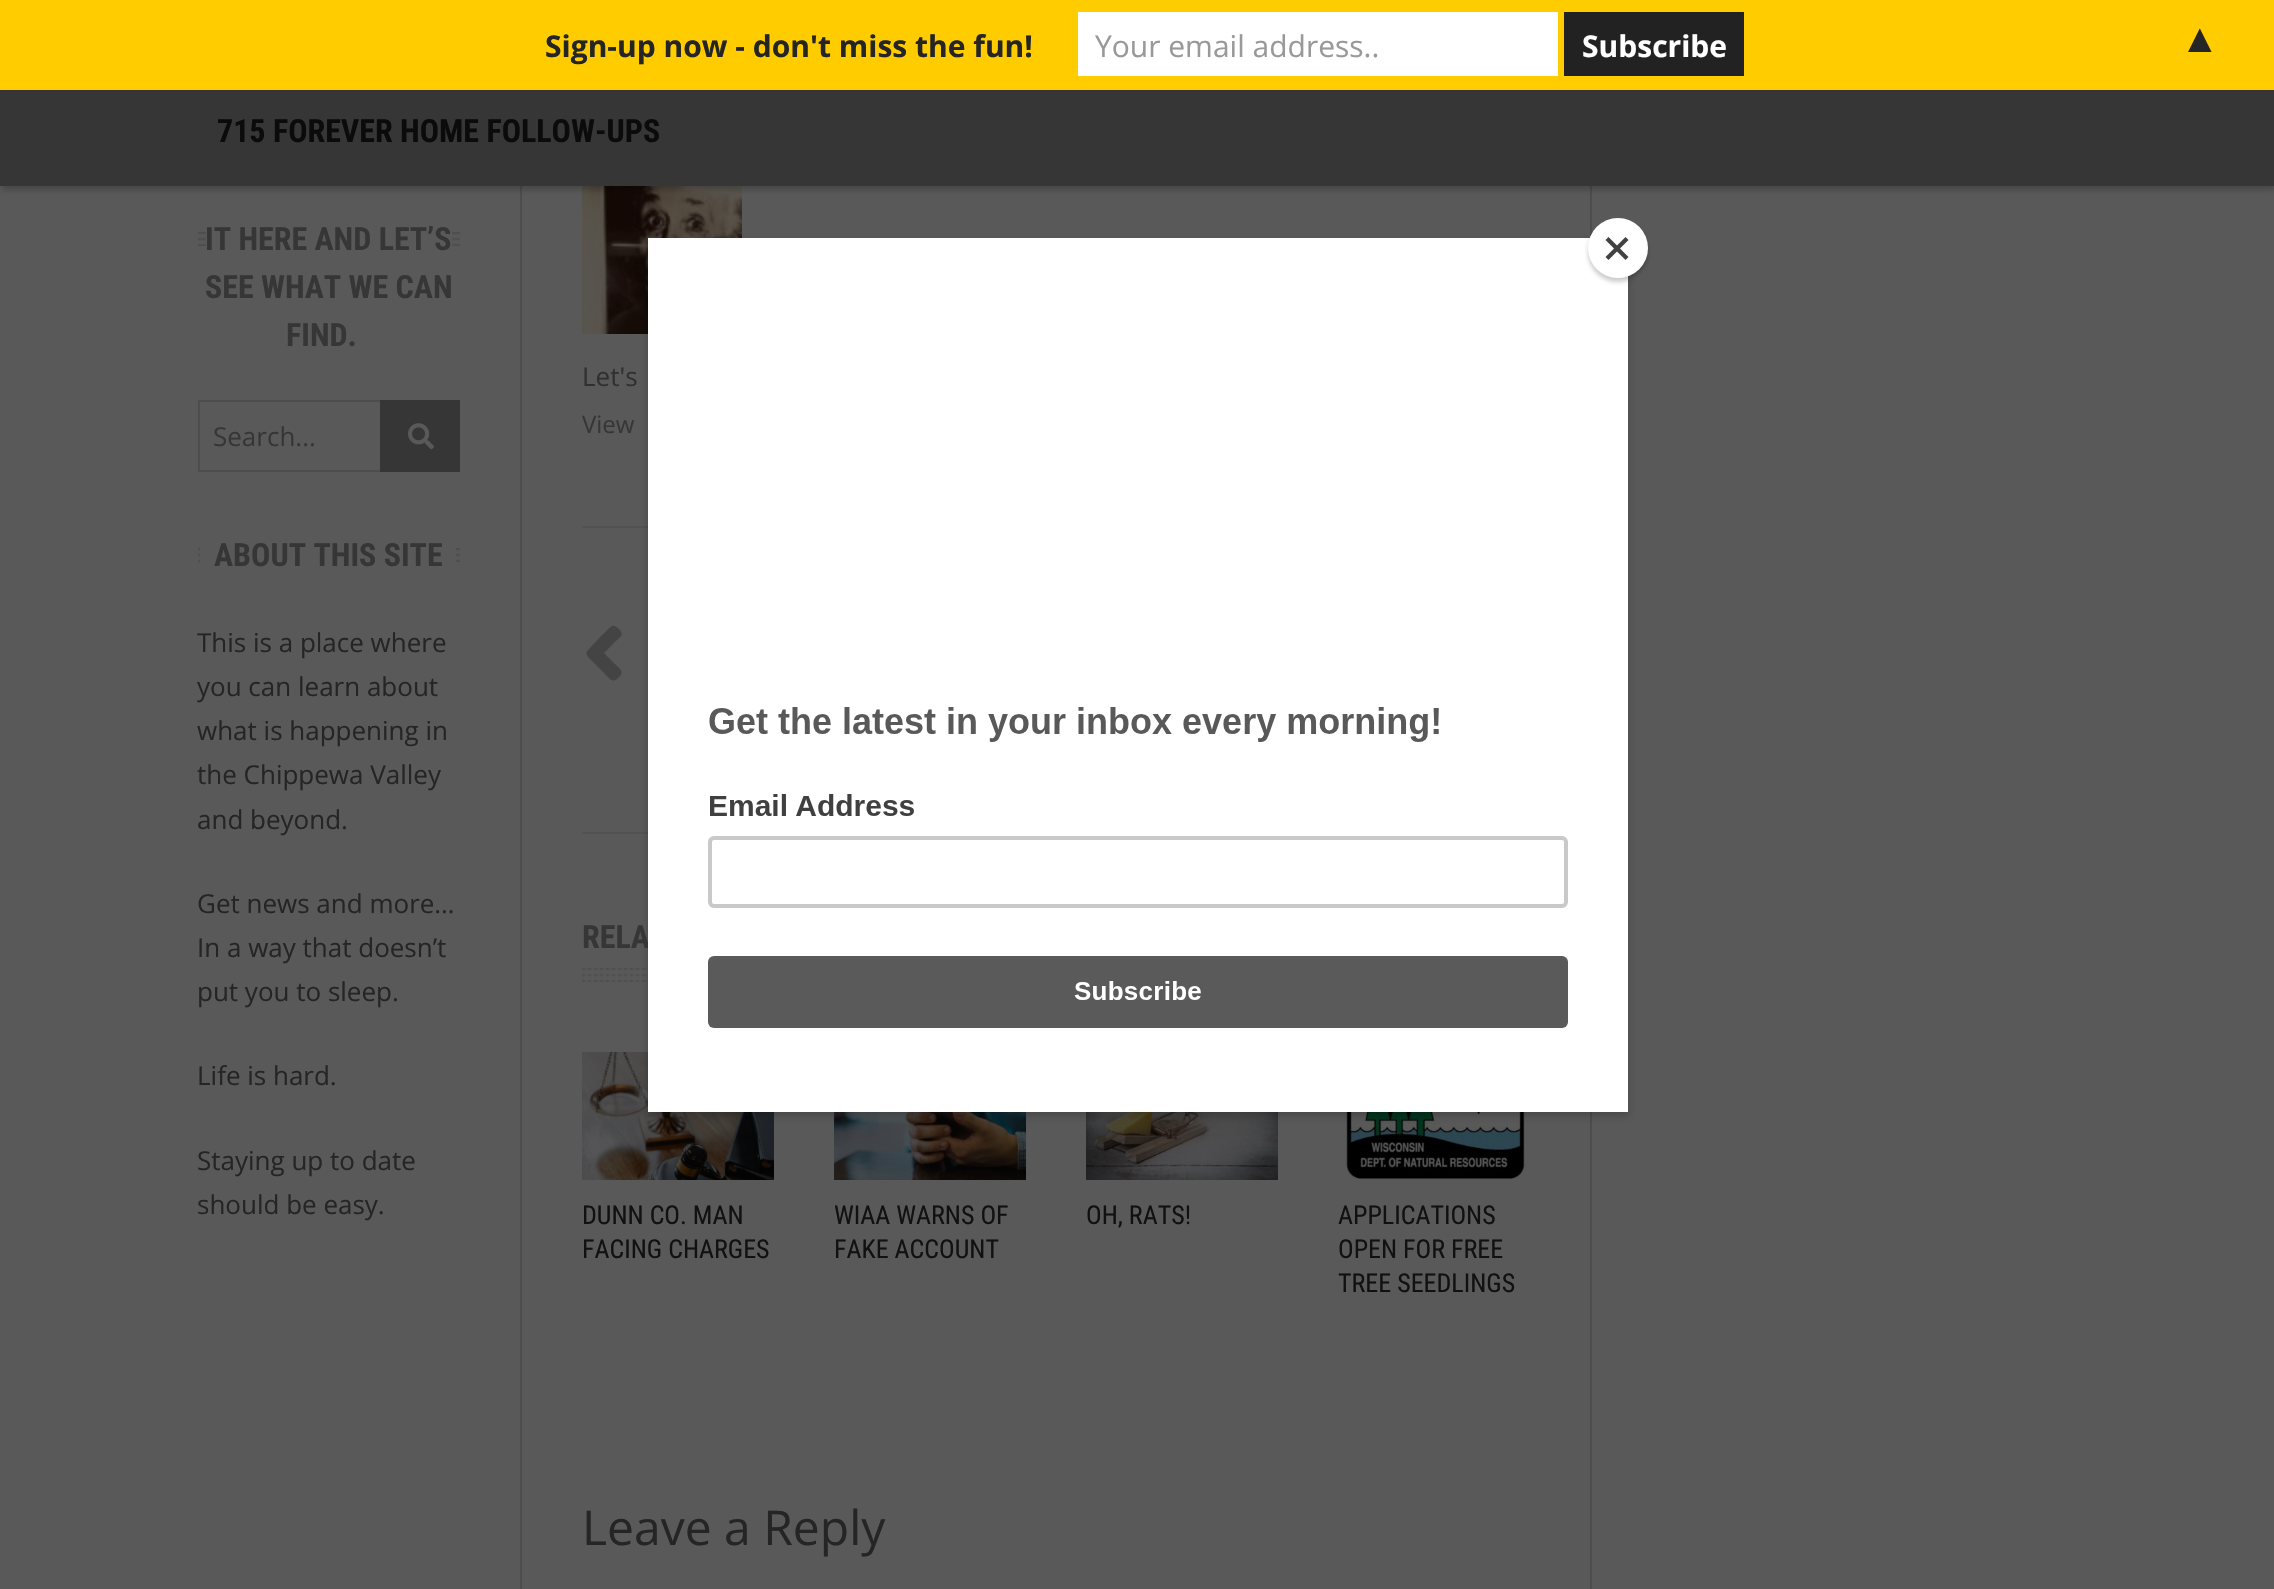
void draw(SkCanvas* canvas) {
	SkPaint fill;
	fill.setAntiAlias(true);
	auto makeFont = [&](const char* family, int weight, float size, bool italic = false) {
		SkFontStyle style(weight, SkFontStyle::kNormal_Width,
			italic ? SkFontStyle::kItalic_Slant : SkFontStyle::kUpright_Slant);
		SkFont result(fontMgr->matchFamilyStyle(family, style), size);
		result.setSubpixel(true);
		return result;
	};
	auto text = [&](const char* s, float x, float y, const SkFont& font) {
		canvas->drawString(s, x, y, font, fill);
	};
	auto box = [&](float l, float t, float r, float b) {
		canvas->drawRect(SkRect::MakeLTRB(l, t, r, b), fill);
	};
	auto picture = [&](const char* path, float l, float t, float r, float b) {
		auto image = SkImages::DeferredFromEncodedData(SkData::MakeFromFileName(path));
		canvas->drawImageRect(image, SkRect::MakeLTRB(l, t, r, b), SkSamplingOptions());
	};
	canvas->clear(0xFF595959);
	fill.setColor(0xFF4D4D4D);
	box(1590, 186, 1592, 1589);
	box(520, 186, 522, 1589);
	picture("image2.png", 582, 186, 742, 334);
	fill.setColor(0x33000000);
	fill.setMaskFilter(SkMaskFilter::MakeBlur(kNormal_SkBlurStyle, 3));
	canvas->drawRect(SkRect::MakeLTRB(2, 4, 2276, 190), fill);
	fill.setMaskFilter(nullptr);
	fill.setColor(0xFFFFCC00);
	box(0, 0, 2274, 90);
	fill.setColor(0xFFFFFFFF);
	box(1078, 12, 1558, 76);
	fill.setColor(0xFF222222);
	box(1564, 12, 1744, 76);
	fill.setColor(0xFF363636);
	box(0, 90, 2274, 186);
	picture("image0.png", 198, 232, 460, 246);
	fill.setColor(0xFF595959);
	box(206, 232, 452, 246);
	fill.setStyle(SkPaint::kStroke_Style);
	fill.setStrokeWidth(2);
	fill.setColor(0xFF4D4D4D);
	canvas->drawRect(SkRect::MakeLTRB(199, 401, 459, 471), fill);
	fill.setStyle(SkPaint::kFill_Style);
	fill.setColor(0xFF363636);
	box(380, 400, 460, 472);
	picture("image1.png", 408, 423, 434, 450);
	picture("image0.png", 198, 548, 460, 562);
	fill.setColor(0xFF595959);
	box(200, 548, 456, 562);
	fill.setColor(0xFF525252);
	box(582, 526, 648, 528);
	box(582, 832, 648, 834);
	fill.setColor(0xFF444444);
	canvas->drawPath(SkPathBuilder().moveTo(588, 650).lineTo(603, 634).cubicTo(611, 627, 612, 622, 619, 629).cubicTo(625, 635, 620, 637, 615, 642).lineTo(604, 653).lineTo(615, 664).cubicTo(617, 666, 624, 671, 621, 675).cubicTo(613, 685, 611, 680, 603, 672).lineTo(591, 660).cubicTo(589, 658, 584, 654, 588, 650).close().detach(), fill);
	picture("image3.png", 582, 968, 648, 982);
	picture("image4.png", 582, 1052, 774, 1180);
	picture("image5.png", 834, 1112, 1026, 1180);
	picture("image6.png", 1086, 1112, 1278, 1180);
	picture("image7.png", 1344, 1112, 1526, 1180);
	fill.setColor(0x33000000);
	fill.setMaskFilter(SkMaskFilter::MakeBlur(kNormal_SkBlurStyle, 4));
	canvas->drawRect(SkRect::MakeLTRB(648, 242, 1628, 1116), fill);
	fill.setMaskFilter(nullptr);
	auto font1 = makeFont("Open Sans", 700, 30);
	fill.setColor(0xFF252525);
	text("Sign-up now - don't miss the fun!", 545, 57, font1);
	auto font2 = makeFont("Open Sans", 400, 30);
	fill.setColor(0xFF999999);
	text("Your email address..", 1095, 57, font2);
	fill.setColor(0xFFFFFFFF);
	text("Subscribe", 1582, 57, font1);
	auto font3 = makeFont("Liberation Sans", 400, 40);
	fill.setColor(0xFF252525);
	text("▲", 2180, 52, font3);
	auto font4 = makeFont("Roboto Condensed", 700, 32);
	fill.setColor(0xFF0B0B0B);
	text("715 FOREVER HOME FOLLOW-UPS", 217, 142, font4);
	fill.setColor(0xFF363636);
	text("IT HERE AND LET’S", 205, 250, font4);
	text("SEE WHAT WE CAN", 205, 298, font4);
	text("FIND.", 286, 346, font4);
	auto font5 = makeFont("Open Sans", 400, 26);
	text("Search...", 213, 446, font5);
	text("ABOUT THIS SITE", 214, 566, font4);
	fill.setColor(0xFF252525);
	text("This is a place where", 197, 652, font5);
	text("you can learn about", 197, 696, font5);
	text("what is happening in", 197, 740, font5);
	text("the Chippewa Valley", 197, 784, font5);
	text("and beyond.", 197, 829, font5);
	text("Get news and more…", 197, 913, font5);
	text("In a way that doesn’t", 197, 957, font5);
	text("put you to sleep.", 197, 1001, font5);
	text("Life is hard.", 197, 1085, font5);
	text("Staying up to date", 197, 1170, font5);
	text("should be easy.", 197, 1214, font5);
	fill.setColor(0xFF303030);
	text("Let's", 582, 386, font5);
	auto font6 = makeFont("Open Sans", 400, 24);
	fill.setColor(0xFF363636);
	text("View", 582, 433, font6);
	text("RELA", 582, 948, font4);
	auto font7 = makeFont("Roboto Condensed", 400, 26);
	fill.setColor(0xFF111111);
	text("DUNN CO. MAN", 582, 1224, font7);
	text("FACING CHARGES", 582, 1258, font7);
	text("WIAA WARNS OF", 834, 1224, font7);
	text("FAKE ACCOUNT", 834, 1258, font7);
	text("OH, RATS!", 1086, 1224, font7);
	text("APPLICATIONS", 1338, 1224, font7);
	text("OPEN FOR FREE", 1338, 1258, font7);
	text("TREE SEEDLINGS", 1338, 1292, font7);
	auto font8 = makeFont("Open Sans", 400, 48);
	fill.setColor(0xFF252525);
	text("Leave a Reply", 582, 1545, font8);
	picture("image8.png", 648, 238, 1628, 1112);
	fill.setColor(0x33000000);
	fill.setMaskFilter(SkMaskFilter::MakeBlur(kNormal_SkBlurStyle, 2));
	canvas->drawRoundRect(SkRect::MakeLTRB(1588, 222, 1648, 282), 30, 30, fill);
	fill.setMaskFilter(nullptr);
	fill.setColor(0xFFFFFFFF);
	canvas->drawCircle(1618, 248, 30, fill);
	fill.setColor(0xFF414141);
	canvas->drawPath(SkPathBuilder().moveTo(1625.5f, 237).lineTo(1628.5f, 240).lineTo(1608.5f, 260).lineTo(1605.5f, 257).close().detach(), fill);
	canvas->drawPath(SkPathBuilder().moveTo(1605.5f, 240).lineTo(1608.5f, 237).lineTo(1628.5f, 257).lineTo(1625.5f, 260).close().detach(), fill);
}
